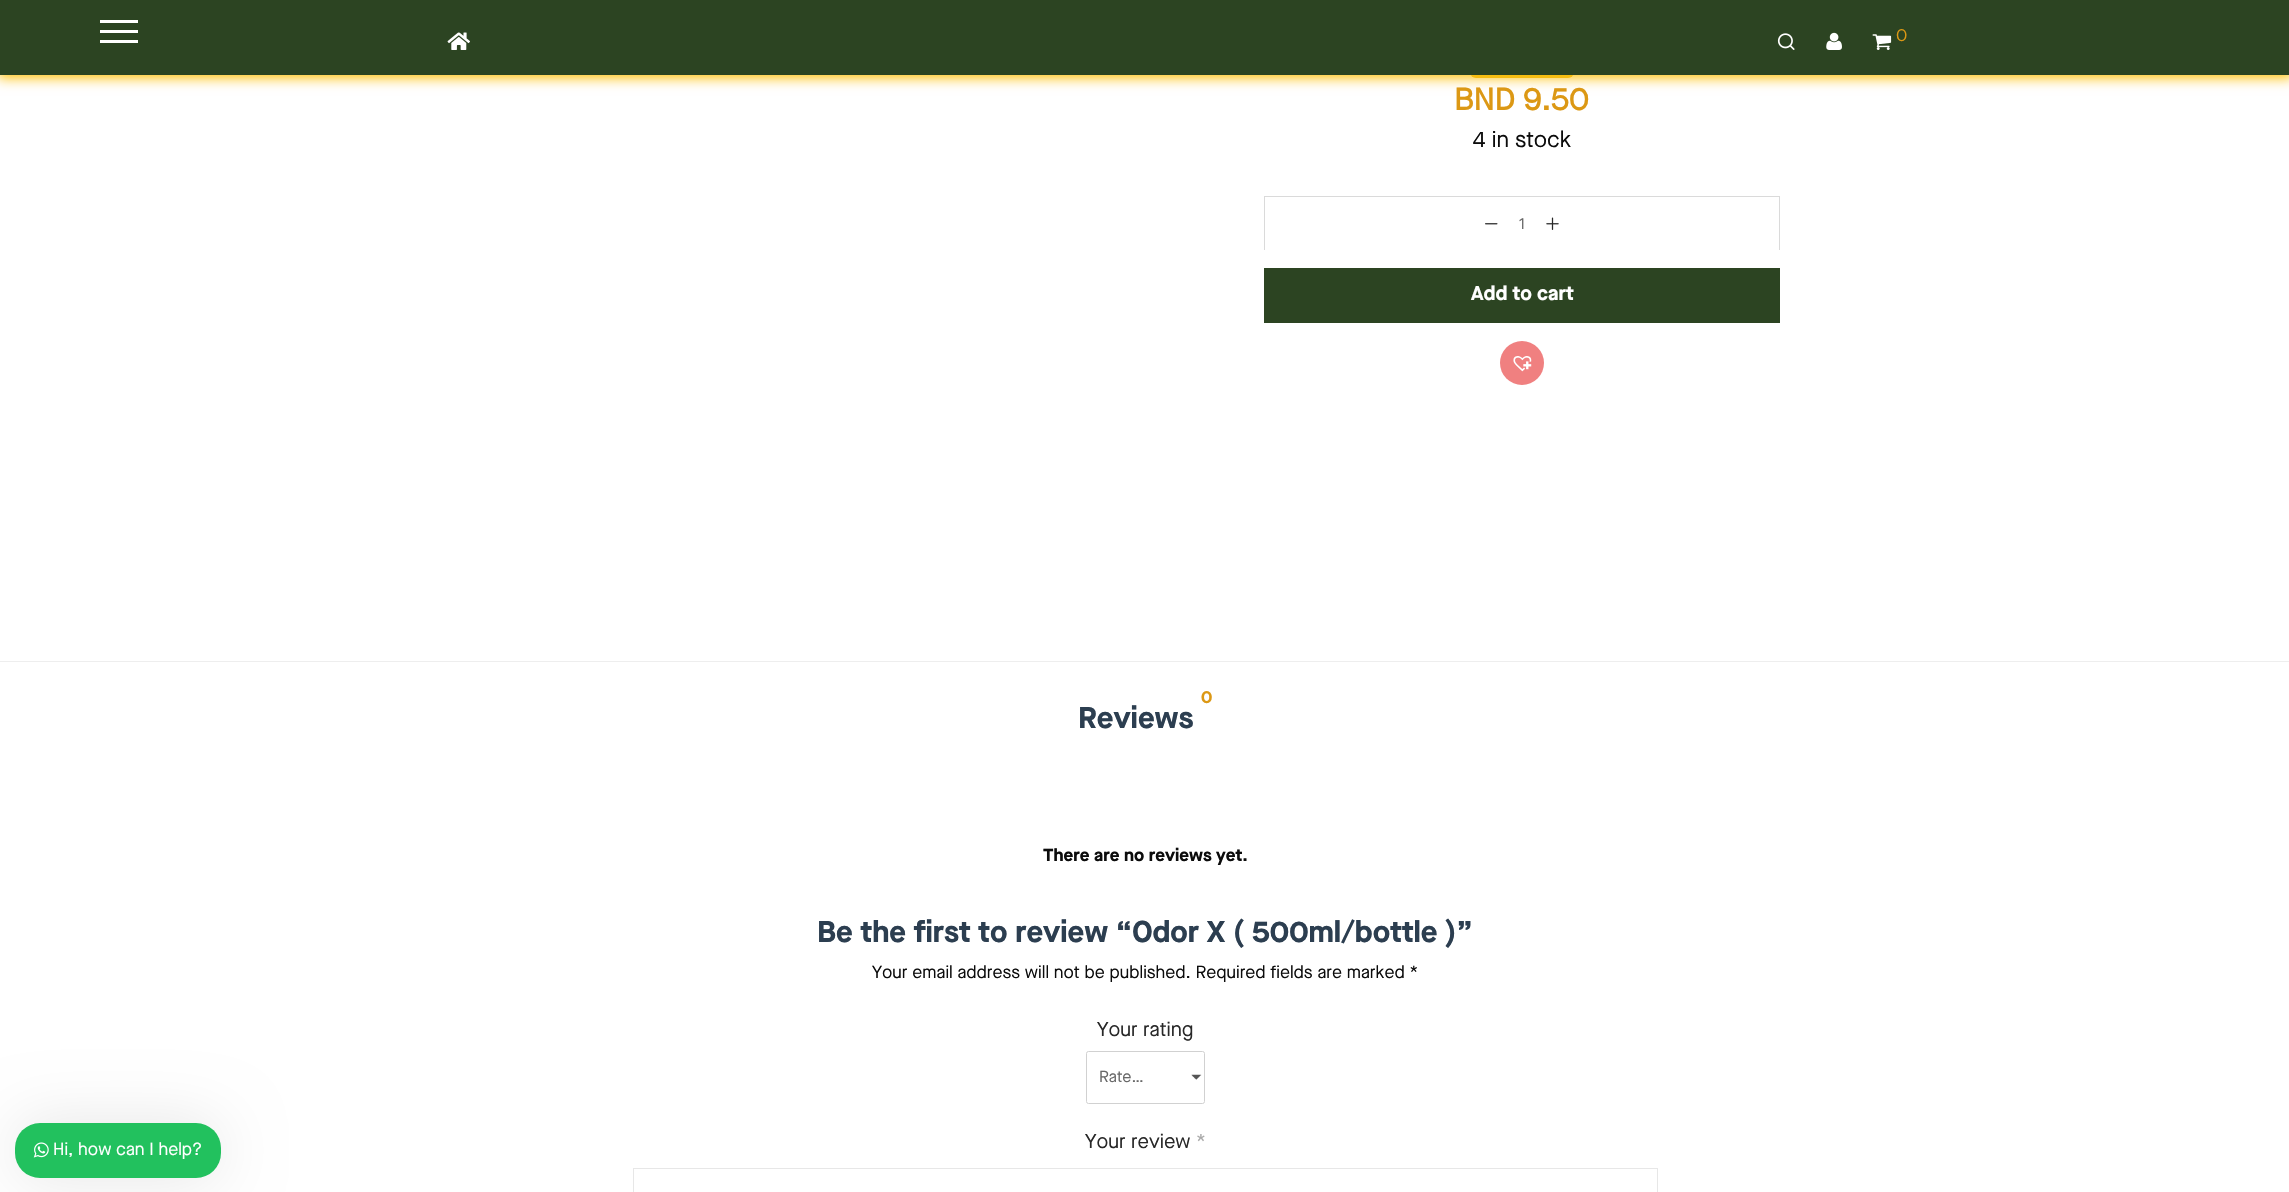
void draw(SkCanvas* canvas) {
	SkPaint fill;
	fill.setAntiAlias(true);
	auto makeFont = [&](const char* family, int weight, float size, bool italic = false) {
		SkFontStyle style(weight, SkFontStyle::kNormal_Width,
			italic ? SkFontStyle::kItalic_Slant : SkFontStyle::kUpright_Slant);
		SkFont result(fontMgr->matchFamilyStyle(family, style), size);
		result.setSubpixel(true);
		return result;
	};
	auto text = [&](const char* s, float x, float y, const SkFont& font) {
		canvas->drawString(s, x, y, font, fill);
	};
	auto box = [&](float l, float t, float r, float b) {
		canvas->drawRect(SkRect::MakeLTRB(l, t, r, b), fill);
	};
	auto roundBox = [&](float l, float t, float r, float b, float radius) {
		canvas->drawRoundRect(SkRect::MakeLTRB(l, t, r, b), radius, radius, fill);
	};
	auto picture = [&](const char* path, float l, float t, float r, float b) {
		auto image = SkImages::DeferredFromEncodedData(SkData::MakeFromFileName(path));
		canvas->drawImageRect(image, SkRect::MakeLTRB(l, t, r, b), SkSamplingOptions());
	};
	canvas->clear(0xFFFFFFFF);
	fill.setColor(0xFFEAB820);
	roundBox(1470, 46, 1574, 78, 6);
	fill.setColor(0xFFFFC107);
	fill.setMaskFilter(SkMaskFilter::MakeBlur(kNormal_SkBlurStyle, 6));
	canvas->drawRect(SkRect::MakeLTRB(-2, -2, 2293, 78), fill);
	fill.setMaskFilter(nullptr);
	fill.setColor(0xFF2C4422);
	box(0, 0, 2289, 75);
	fill.setColor(0xFFFFFFFF);
	box(100, 30, 138, 33);
	box(100, 20, 138, 23);
	box(100, 40, 138, 43);
	fill.setColor(0x1A000000);
	fill.setMaskFilter(SkMaskFilter::MakeBlur(kNormal_SkBlurStyle, 31));
	canvas->drawRoundRect(SkRect::MakeLTRB(15, 1123, 221, 1178), 25, 25, fill);
	fill.setMaskFilter(nullptr);
	fill.setColor(0xFF22C15E);
	roundBox(15, 1123, 221, 1178, 25);
	picture("image0.png", 33, 1142, 49, 1158);
	picture("image1.png", 447, 32, 470, 50);
	picture("image2.png", 1777, 33, 1795, 50);
	picture("image3.png", 1826, 32, 1842, 50);
	picture("image4.png", 1872, 34, 1892, 50);
	fill.setColor(0xFFDADADA);
	box(1264, 196, 1780, 197);
	box(1779, 196, 1780, 250);
	box(1264, 196, 1265, 250);
	picture("image5.png", 1485, 223, 1498, 225);
	picture("image6.png", 1546, 217, 1559, 230);
	fill.setColor(0xFF2C4422);
	box(1264, 268, 1780, 323);
	fill.setColor(0xFFF08080);
	canvas->drawCircle(1522, 363, 22, fill);
	picture("image7.png", 1513, 356, 1532, 372);
	fill.setColor(0xFFEEEEEE);
	box(0, 661, 2289, 662);
	picture("image8.png", 1191, 1074, 1202, 1080);
	fill.setStyle(SkPaint::kStroke_Style);
	fill.setStrokeWidth(1);
	fill.setColor(0xFFD1D1D1);
	canvas->drawRoundRect(SkRect::MakeLTRB(1086.5f, 1051.5f, 1204.5f, 1103.5f), 2, 2, fill);
	fill.setColor(0xFFE7E7E7);
	canvas->drawRect(SkRect::MakeLTRB(633.5f, 1168.5f, 1657.5f, 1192.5f), fill);
	auto font1 = makeFont("Maison Neue", 400, 17.5f);
	fill.setStyle(SkPaint::kFill_Style);
	fill.setColor(0xFFFFFFFF);
	text("Hi, how can I help?", 53, 1155, font1);
	fill.setColor(0xFFDC9814);
	text("0", 1896, 41, font1);
	auto font2 = makeFont("Maison Neue", 700, 31);
	text("BND", 1454, 110, font2);
	text("9.50", 1523, 110, font2);
	auto font3 = makeFont("Maison Neue", 400, 22.5f);
	fill.setColor(0xFF0C0C0C);
	text("4 in stock", 1473, 147, font3);
	auto font4 = makeFont("Maison Neue", 400, 16);
	fill.setColor(0xFF686868);
	text("1", 1519, 229, font4);
	auto font5 = makeFont("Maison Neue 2", 700, 20);
	fill.setColor(0xFFFFFFFF);
	text("Add to cart", 1471, 300, font5);
	auto font6 = makeFont("Maison Neue 2", 700, 17.5f);
	fill.setColor(0xFFDC9814);
	text("0", 1201, 703, font6);
	auto font7 = makeFont("Maison Neue 2", 700, 30);
	fill.setColor(0xFF2C3E50);
	text("Reviews", 1078, 728, font7);
	fill.setColor(0xFF0C0C0C);
	text("There are no reviews yet.", 1043, 861, font6);
	fill.setColor(0xFF2C3E50);
	text("Be the first to review “Odor X ( 500ml/bottle )”", 817, 942, font7);
	fill.setColor(0xFF0C0C0C);
	text("Your email address will not be published. Required fields are marked *", 872, 978, font1);
	auto font8 = makeFont("Maison Neue", 400, 20);
	fill.setColor(0xFF282828);
	text("Your rating", 1097, 1036, font8);
	fill.setColor(0xFF686868);
	text("Rate…", 1099, 1082, font4);
	fill.setColor(0xFF282828);
	text("Your review", 1085, 1148, font8);
	fill.setColor(0xFFAAAAAA);
	text("*", 1196, 1148, font8);
}
